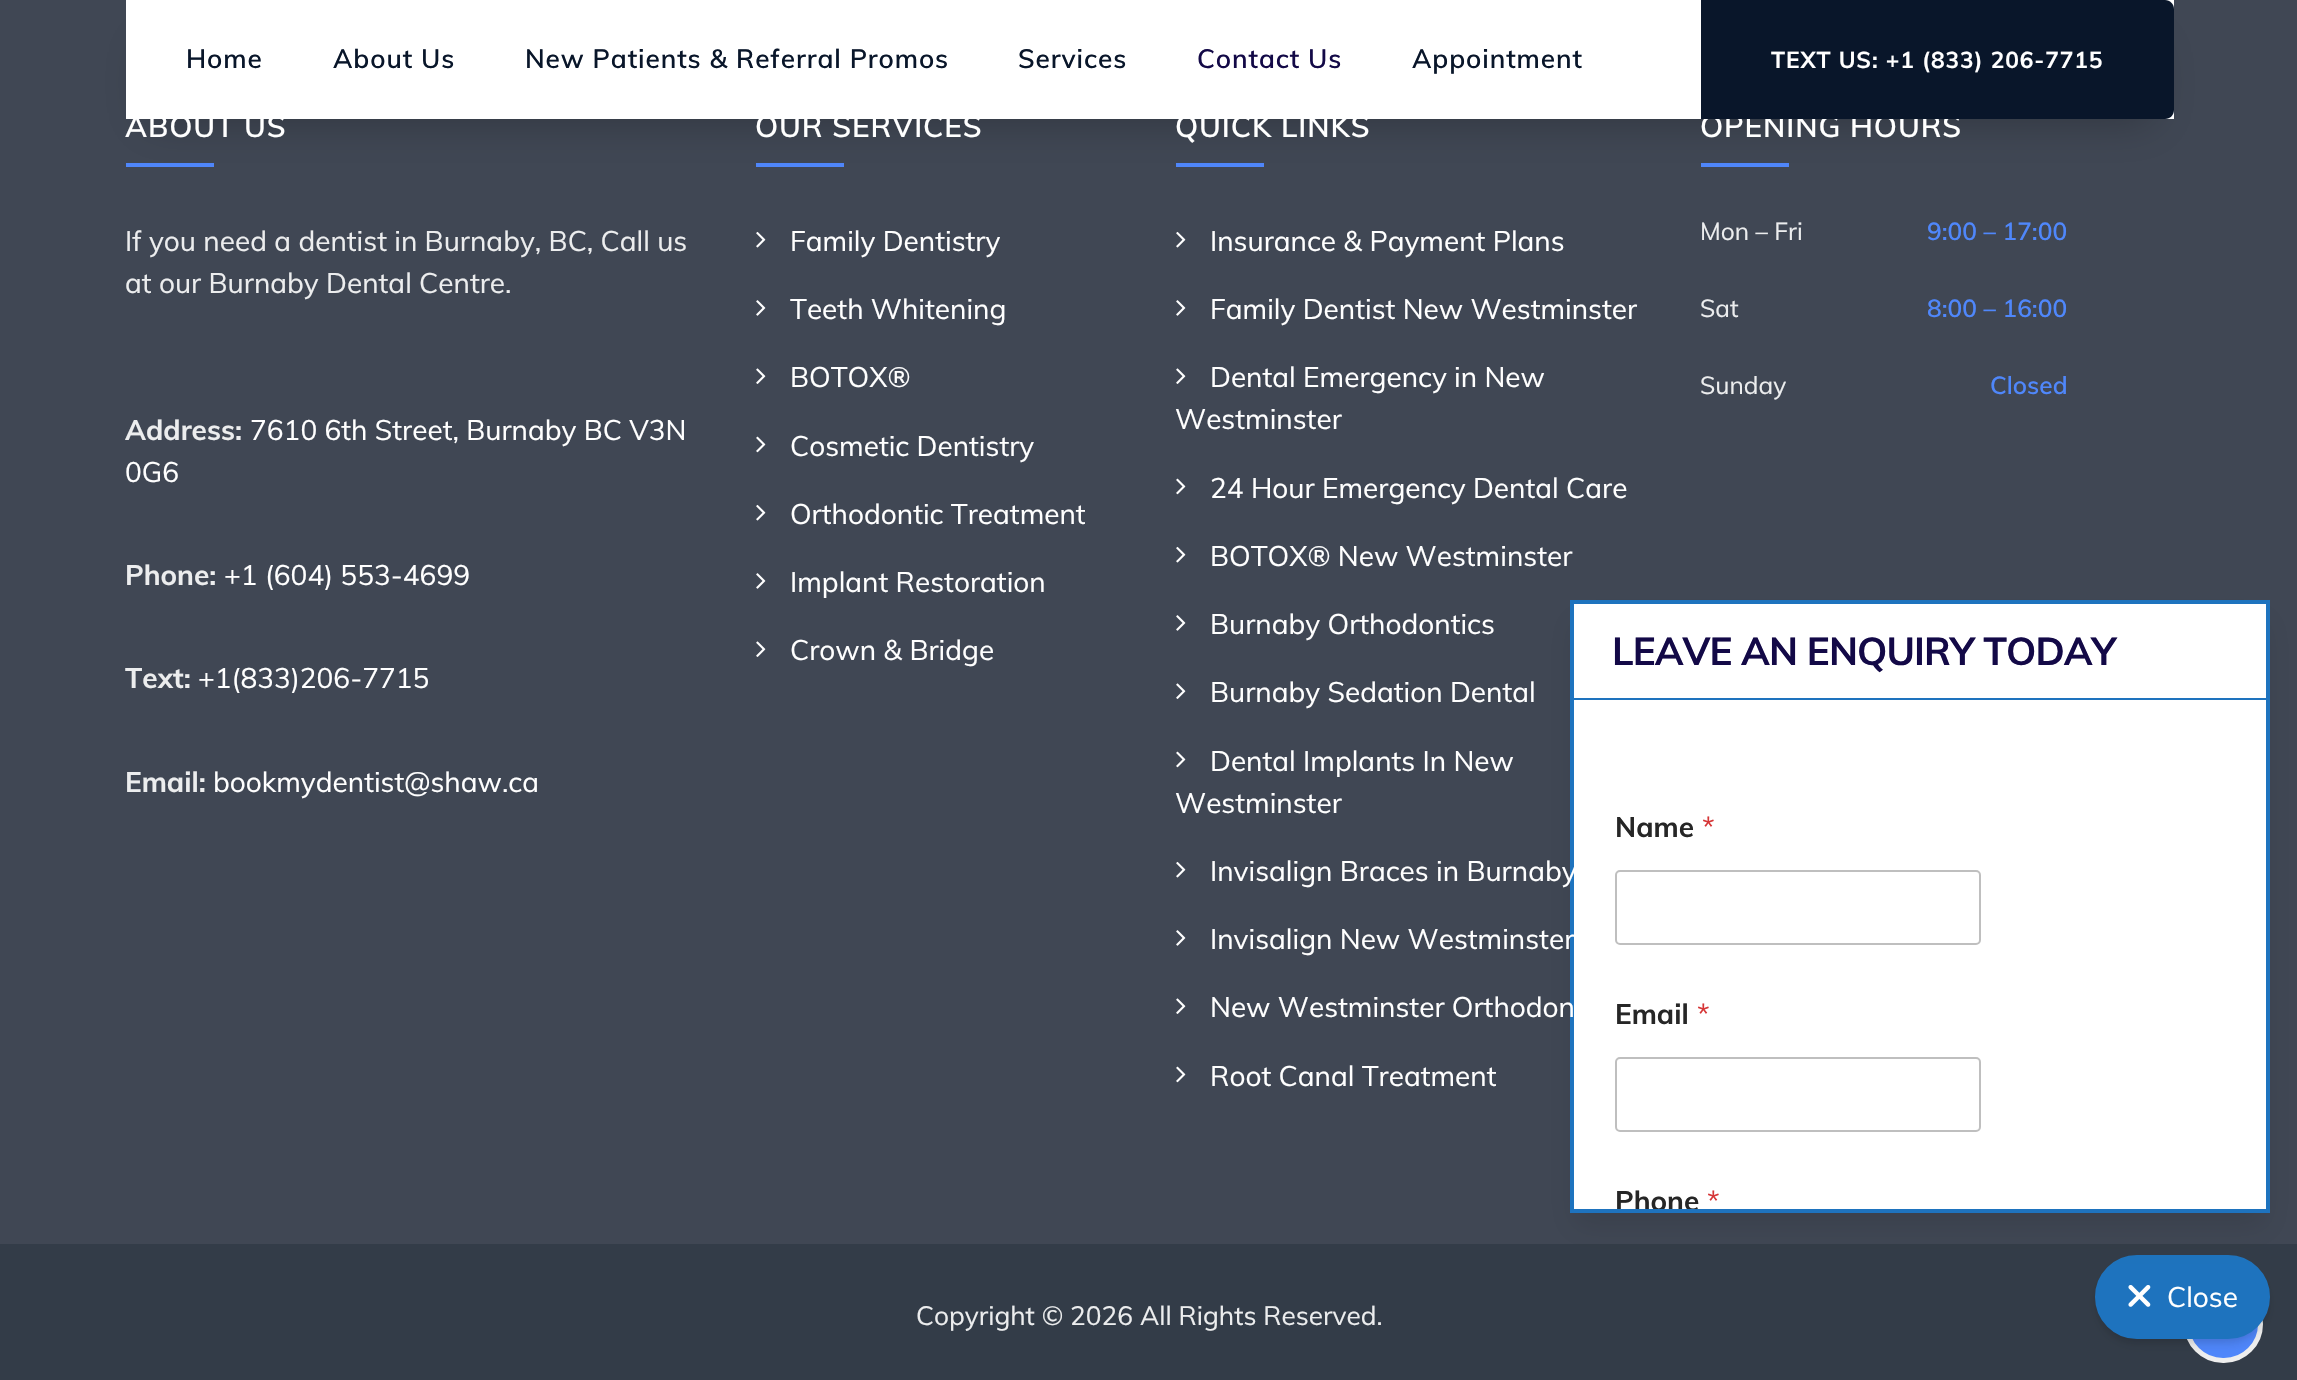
void draw(SkCanvas* canvas) {
	SkPaint fill;
	fill.setAntiAlias(true);
	auto makeFont = [&](const char* family, int weight, float size, bool italic = false) {
		SkFontStyle style(weight, SkFontStyle::kNormal_Width,
			italic ? SkFontStyle::kItalic_Slant : SkFontStyle::kUpright_Slant);
		SkFont result(fontMgr->matchFamilyStyle(family, style), size);
		result.setSubpixel(true);
		return result;
	};
	auto text = [&](const char* s, float x, float y, const SkFont& font) {
		canvas->drawString(s, x, y, font, fill);
	};
	auto spacedText = [&](const char* s, float x, float y, const SkFont& font, const SkPaint& ink, float letter, float word) {
		std::vector<SkGlyphID> glyphs(font.countText(s, strlen(s), SkTextEncoding::kUTF8));
		std::vector<float> xs(glyphs.size());
		font.textToGlyphs(s, strlen(s), SkTextEncoding::kUTF8, glyphs);
		font.getXPos(glyphs, xs, x);
		float extra = 0;
		for (size_t i = 0; i < glyphs.size(); i++) {
			xs[i] += extra;
			extra += letter + word * (glyphs[i] == font.unicharToGlyph(' '));
		}
		canvas->drawTextBlob(SkTextBlob::MakeFromPosHGlyphs(glyphs, xs, y, font), 0, 0, ink);
	};
	auto box = [&](float l, float t, float r, float b) {
		canvas->drawRect(SkRect::MakeLTRB(l, t, r, b), fill);
	};
	auto picture = [&](const char* path, float l, float t, float r, float b) {
		auto image = SkImages::DeferredFromEncodedData(SkData::MakeFromFileName(path));
		canvas->drawImageRect(image, SkRect::MakeLTRB(l, t, r, b), SkSamplingOptions());
	};
	canvas->clear(0xFF404754);
	fill.setColor(0xFF4F87FB);
	box(126, 163, 214, 167);
	box(756, 163, 844, 167);
	box(1176, 163, 1264, 167);
	box(1701, 163, 1789, 167);
	fill.setColor(0x40000000);
	fill.setMaskFilter(SkMaskFilter::MakeBlur(kNormal_SkBlurStyle, 22));
	canvas->drawRect(SkRect::MakeLTRB(147, 44, 2153, 121), fill);
	fill.setMaskFilter(nullptr);
	fill.setColor(0xFFFFFFFF);
	box(126, 0, 2174, 119);
	picture("image0.png", 756, 231, 766, 248);
	picture("image1.png", 756, 300, 766, 316);
	picture("image2.png", 756, 368, 766, 384);
	picture("image3.png", 756, 436, 766, 453);
	picture("image0.png", 756, 504, 766, 521);
	picture("image1.png", 756, 573, 766, 589);
	picture("image2.png", 756, 641, 766, 657);
	picture("image0.png", 1176, 231, 1186, 248);
	picture("image1.png", 1176, 300, 1186, 316);
	picture("image2.png", 1176, 368, 1186, 384);
	picture("image3.png", 1176, 478, 1186, 495);
	picture("image0.png", 1176, 546, 1186, 563);
	picture("image1.png", 1176, 615, 1186, 631);
	picture("image2.png", 1176, 683, 1186, 699);
	picture("image3.png", 1176, 751, 1186, 768);
	picture("image0.png", 1176, 861, 1186, 878);
	picture("image1.png", 1176, 930, 1186, 946);
	picture("image2.png", 1176, 998, 1186, 1014);
	picture("image3.png", 1176, 1066, 1186, 1083);
	fill.setColor(0xFF333C48);
	box(0, 1244, 2297, 1380);
	fill.setColor(0xFF4F87FB);
	canvas->drawRoundRect(SkRect::MakeLTRB(2186.5f, 1287.5f, 2260.5f, 1360.5f), 36.5f, 36.5f, fill);
	fill.setStyle(SkPaint::kStroke_Style);
	fill.setStrokeWidth(5);
	fill.setColor(0xFFEEEEEE);
	canvas->drawRoundRect(SkRect::MakeLTRB(2186.5f, 1287.5f, 2260.5f, 1360.5f), 36.5f, 36.5f, fill);
	fill.setStyle(SkPaint::kFill_Style);
	fill.setColor(0x0F000000);
	fill.setMaskFilter(SkMaskFilter::MakeBlur(kNormal_SkBlurStyle, 3.5f));
	canvas->drawRoundRect(SkRect::MakeLTRB(2097, 1260, 2268, 1341), 40.5f, 40.5f, fill);
	fill.setMaskFilter(nullptr);
	fill.setColor(0x1A000000);
	fill.setMaskFilter(SkMaskFilter::MakeBlur(kNormal_SkBlurStyle, 5));
	canvas->drawRoundRect(SkRect::MakeLTRB(2097, 1264, 2268, 1344), 40, 40, fill);
	fill.setMaskFilter(nullptr);
	fill.setColor(0xFF1E73BE);
	canvas->drawRoundRect(SkRect::MakeLTRB(2097, 1257, 2268, 1337), 40, 40, fill);
	fill.setStyle(SkPaint::kStroke_Style);
	fill.setStrokeWidth(4);
	canvas->drawRoundRect(SkRect::MakeLTRB(2097, 1257, 2268, 1337), 40, 40, fill);
	fill.setStyle(SkPaint::kFill_Style);
	fill.setColor(0x1A000000);
	fill.setMaskFilter(SkMaskFilter::MakeBlur(kNormal_SkBlurStyle, 13));
	canvas->drawRect(SkRect::MakeLTRB(1575, 623, 2265, 1225), fill);
	fill.setMaskFilter(nullptr);
	fill.setColor(0xFFFFFFFF);
	canvas->drawRect(SkRect::MakeLTRB(1572, 602, 2268, 1211), fill);
	fill.setStyle(SkPaint::kStroke_Style);
	fill.setColor(0xFF1E73BE);
	canvas->drawRect(SkRect::MakeLTRB(1572, 602, 2268, 1211), fill);
	fill.setStyle(SkPaint::kFill_Style);
	box(1573, 698, 2266, 700);
	fill.setStyle(SkPaint::kStroke_Style);
	fill.setStrokeWidth(2);
	fill.setColor(0xFFBFBFBF);
	canvas->drawRoundRect(SkRect::MakeLTRB(1616, 871, 1980, 944), 4, 4, fill);
	canvas->drawRoundRect(SkRect::MakeLTRB(1616, 1058, 1980, 1131), 4, 4, fill);
	picture("image4.png", 2128, 1285, 2151, 1307);
	auto font1 = makeFont("Muli", 600, 26.25f);
	fill.setStyle(SkPaint::kFill_Style);
	fill.setColor(0xFF09162A);
	spacedText("Home", 186, 68, font1, fill, 0.9f, 0);
	spacedText("About Us", 333, 68, font1, fill, 0.9f, 0);
	spacedText("New Patients & Referral Promos", 525, 68, font1, fill, 0.9f, 0);
	spacedText("Services", 1018, 68, font1, fill, 0.9f, 0);
	fill.setColor(0xFF130947);
	spacedText("Contact Us", 1197, 68, font1, fill, 0.9f, 0);
	fill.setColor(0xFF09162A);
	spacedText("Appointment", 1412, 68, font1, fill, 0.9f, 0);
	auto font2 = makeFont("Muli", 600, 29.75f);
	fill.setColor(0xFFFFFFFF);
	spacedText("ABOUT US", 125, 137, font2, fill, 0.9f, 0);
	auto font3 = makeFont("Muli", 400, 28);
	fill.setColor(0xFFECEDEE);
	text("If you need a dentist in Burnaby, BC, Call us", 125, 251, font3);
	text("at our Burnaby Dental Centre.", 125, 293, font3);
	auto font4 = makeFont("Muli", 700, 28);
	text("Address:", 125, 440, font4);
	fill.setColor(0xFFFFFFFF);
	text("7610 6th Street, Burnaby BC V3N", 250, 440, font3);
	text("0G6", 125, 482, font3);
	fill.setColor(0xFFECEDEE);
	text("Phone:", 125, 585, font4);
	fill.setColor(0xFFFFFFFF);
	text("+1 (604) 553-4699", 224, 585, font3);
	fill.setColor(0xFFECEDEE);
	text("Text:", 125, 688, font4);
	fill.setColor(0xFFFFFFFF);
	text("+1(833)206-7715", 198, 688, font3);
	fill.setColor(0xFFECEDEE);
	text("Email:", 125, 792, font4);
	fill.setColor(0xFFFFFFFF);
	text("bookmydentist@shaw.ca", 213, 792, font3);
	spacedText("OUR SERVICES", 755, 137, font2, fill, 0.9f, 0);
	text("Family Dentistry", 790, 251, font3);
	text("Teeth Whitening", 790, 319, font3);
	text("BOTOX®", 790, 387, font3);
	text("Cosmetic Dentistry", 790, 456, font3);
	text("Orthodontic Treatment", 790, 524, font3);
	text("Implant Restoration", 790, 592, font3);
	text("Crown & Bridge", 790, 660, font3);
	spacedText("QUICK LINKS", 1175, 137, font2, fill, 0.9f, 0);
	text("Insurance & Payment Plans", 1210, 251, font3);
	text("Family Dentist New Westminster", 1210, 319, font3);
	text("Dental Emergency in New", 1210, 387, font3);
	text("Westminster", 1175, 429, font3);
	text("24 Hour Emergency Dental Care", 1210, 498, font3);
	text("BOTOX® New Westminster", 1210, 566, font3);
	text("Burnaby Orthodontics", 1210, 634, font3);
	text("Burnaby Sedation Dental", 1210, 702, font3);
	text("Dental Implants In New", 1210, 771, font3);
	text("Westminster", 1175, 813, font3);
	text("Invisalign Braces in Burnaby", 1210, 881, font3);
	text("Invisalign New Westminster", 1210, 949, font3);
	text("New Westminster Orthodon", 1210, 1017, font3);
	text("Root Canal Treatment", 1210, 1086, font3);
	spacedText("OPENING HOURS", 1700, 137, font2, fill, 0.9f, 0);
	fill.setColor(0xFF09162A);
	canvas->drawPath(SkPathBuilder().moveTo(1701, 0).lineTo(2165, 0).cubicTo(2170, 0, 2174, 4, 2174, 9).lineTo(2174, 110).cubicTo(2174, 115, 2170, 119, 2165, 119).lineTo(1701, 119).close().detach(), fill);
	auto font5 = makeFont("Muli", 700, 22.75f);
	fill.setColor(0xFFFFFFFF);
	spacedText("TEXT US: +1 (833) 206-7715", 1771, 68, font5, fill, 0.9f, 0);
	auto font6 = makeFont("Muli", 400, 24.5f);
	fill.setColor(0xFFECEDEE);
	text("Mon – Fri", 1700, 240, font6);
	auto font7 = makeFont("Muli", 600, 24.5f);
	fill.setColor(0xFF4F87FB);
	text("9:00 – 17:00", 1927, 240, font7);
	fill.setColor(0xFFECEDEE);
	text("Sat", 1700, 317, font6);
	fill.setColor(0xFF4F87FB);
	text("8:00 – 16:00", 1927, 317, font7);
	fill.setColor(0xFFECEDEE);
	text("Sunday", 1700, 394, font6);
	fill.setColor(0xFF4F87FB);
	text("Closed", 1990, 394, font7);
	auto font8 = makeFont("Muli", 400, 26.25f);
	fill.setColor(0xFFECEDEE);
	text("Copyright © 2026 All Rights Reserved.", 916, 1325, font8);
	auto font9 = makeFont("Muli", 700, 38.5f);
	fill.setColor(0xFF130947);
	spacedText("LEAVE AN ENQUIRY TODAY", 1612, 665, font9, fill, -0.9f, 0);
	fill.setColor(0xFF262626);
	text("Name", 1615, 837, font4);
	fill.setColor(0xFFD63637);
	text("*", 1702, 837, font3);
	fill.setColor(0xFF262626);
	text("Email", 1615, 1024, font4);
	fill.setColor(0xFFD63637);
	text("*", 1697, 1024, font3);
	canvas->save();
	canvas->clipRect(SkRect::MakeLTRB(1573, 700, 2266, 1209));
	fill.setColor(0xFF262626);
	text("Phone", 1615, 1211, font4);
	canvas->restore();
	fill.setColor(0xFFD63637);
	text("*", 1707, 1211, font3);
	fill.setColor(0xFFFFFFFF);
	text("Close", 2167, 1307, font3);
}
